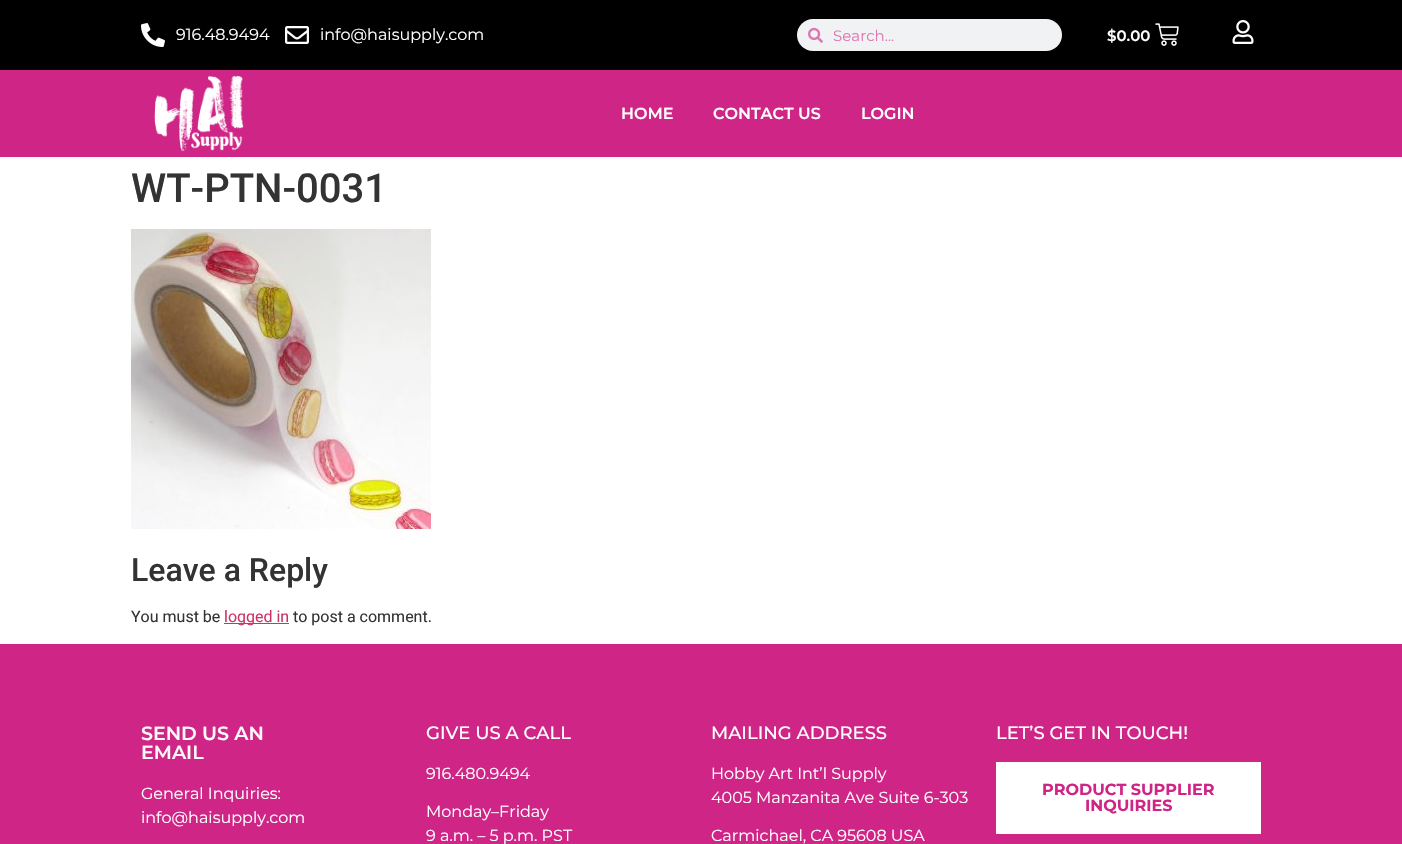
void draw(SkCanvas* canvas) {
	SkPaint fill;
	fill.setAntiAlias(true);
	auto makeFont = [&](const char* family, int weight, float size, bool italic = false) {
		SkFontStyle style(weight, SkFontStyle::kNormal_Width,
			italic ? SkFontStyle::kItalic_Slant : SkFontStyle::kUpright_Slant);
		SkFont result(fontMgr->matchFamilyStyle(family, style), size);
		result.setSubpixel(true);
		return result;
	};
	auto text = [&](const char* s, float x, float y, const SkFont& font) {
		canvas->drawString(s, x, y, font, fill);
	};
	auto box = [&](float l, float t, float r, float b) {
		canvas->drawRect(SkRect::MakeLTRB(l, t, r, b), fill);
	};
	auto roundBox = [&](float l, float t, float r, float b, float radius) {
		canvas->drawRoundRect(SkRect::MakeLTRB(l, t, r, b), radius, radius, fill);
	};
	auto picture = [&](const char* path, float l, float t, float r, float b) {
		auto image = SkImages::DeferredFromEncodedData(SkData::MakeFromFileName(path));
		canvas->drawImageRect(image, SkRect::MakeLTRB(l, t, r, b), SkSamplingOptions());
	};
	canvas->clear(0xFFFFFFFF);
	fill.setColor(0xFF000000);
	box(0, 0, 1402, 70);
	picture("image0.png", 141, 23, 165, 47);
	picture("image1.png", 285, 26, 309, 44);
	fill.setColor(0xFFF1F2F3);
	roundBox(797, 19, 1062, 51, 16);
	picture("image2.png", 808, 27, 823, 43);
	picture("image3.png", 1155, 23, 1179, 46);
	picture("image4.png", 1232, 20, 1254, 44);
	fill.setColor(0xFFCF2587);
	box(0, 70, 1402, 157);
	picture("image5.png", 154, 75, 244, 152);
	picture("image6.png", 131, 229, 431, 529);
	fill.setColor(0xFFCC3366);
	box(224, 623, 289, 624);
	fill.setColor(0xFFCF2587);
	box(0, 644, 1402, 844);
	fill.setColor(0xFFFFFFFF);
	box(996, 762, 1261, 834);
	auto font1 = makeFont("Montserrat", 400, 16);
	text("916.48.9494", 176, 40, font1);
	text("info@haisupply.com", 320, 40, font1);
	auto font2 = makeFont("Montserrat", 400, 15);
	fill.setColor(0xFFDD77B2);
	text("Search...", 833, 41, font2);
	auto font3 = makeFont("Montserrat", 600, 15);
	fill.setColor(0xFFFFFFFF);
	text("$0.00", 1107, 41, font3);
	auto font4 = makeFont("Montserrat", 600, 16);
	text("HOME", 621, 119, font4);
	text("CONTACT US", 713, 119, font4);
	text("LOGIN", 861, 119, font4);
	auto font5 = makeFont("Roboto", 500, 40);
	fill.setColor(0xFF333333);
	text("WT-PTN-0031", 131, 202, font5);
	auto font6 = makeFont("Roboto", 500, 32);
	text("Leave a Reply", 131, 581, font6);
	auto font7 = makeFont("Roboto", 400, 16);
	text("You must be", 131, 622, font7);
	fill.setColor(0xFFCC3366);
	text("logged in", 224, 622, font7);
	fill.setColor(0xFF333333);
	text("to post a comment.", 293, 622, font7);
	auto font8 = makeFont("Montserrat", 600, 19);
	fill.setColor(0xFFF9F9F9);
	text("SEND US AN", 141, 740, font8);
	text("EMAIL", 141, 759, font8);
	fill.setColor(0xFFFFFFFF);
	text("General Inquiries:", 141, 799, font1);
	text("info@haisupply.com", 141, 823, font1);
	auto font9 = makeFont("Montserrat", 500, 18);
	text("GIVE US A CALL", 426, 739, font9);
	text("916.480.9494", 426, 779, font1);
	text("Monday–Friday", 426, 817, font1);
	text("9 a.m. – 5 p.m. PST", 426, 841, font1);
	text("MAILING ADDRESS", 711, 739, font9);
	text("Hobby Art Int’l Supply", 711, 779, font1);
	text("4005 Manzanita Ave Suite 6-303", 711, 803, font1);
	text("Carmichael, CA 95608 USA", 711, 841, font1);
	text("LET’S GET IN TOUCH!", 996, 739, font9);
	auto font10 = makeFont("Montserrat", 700, 16);
	fill.setColor(0xFFCF2587);
	text("PRODUCT SUPPLIER", 1042, 795, font10);
	text("INQUIRIES", 1085, 811, font10);
}
